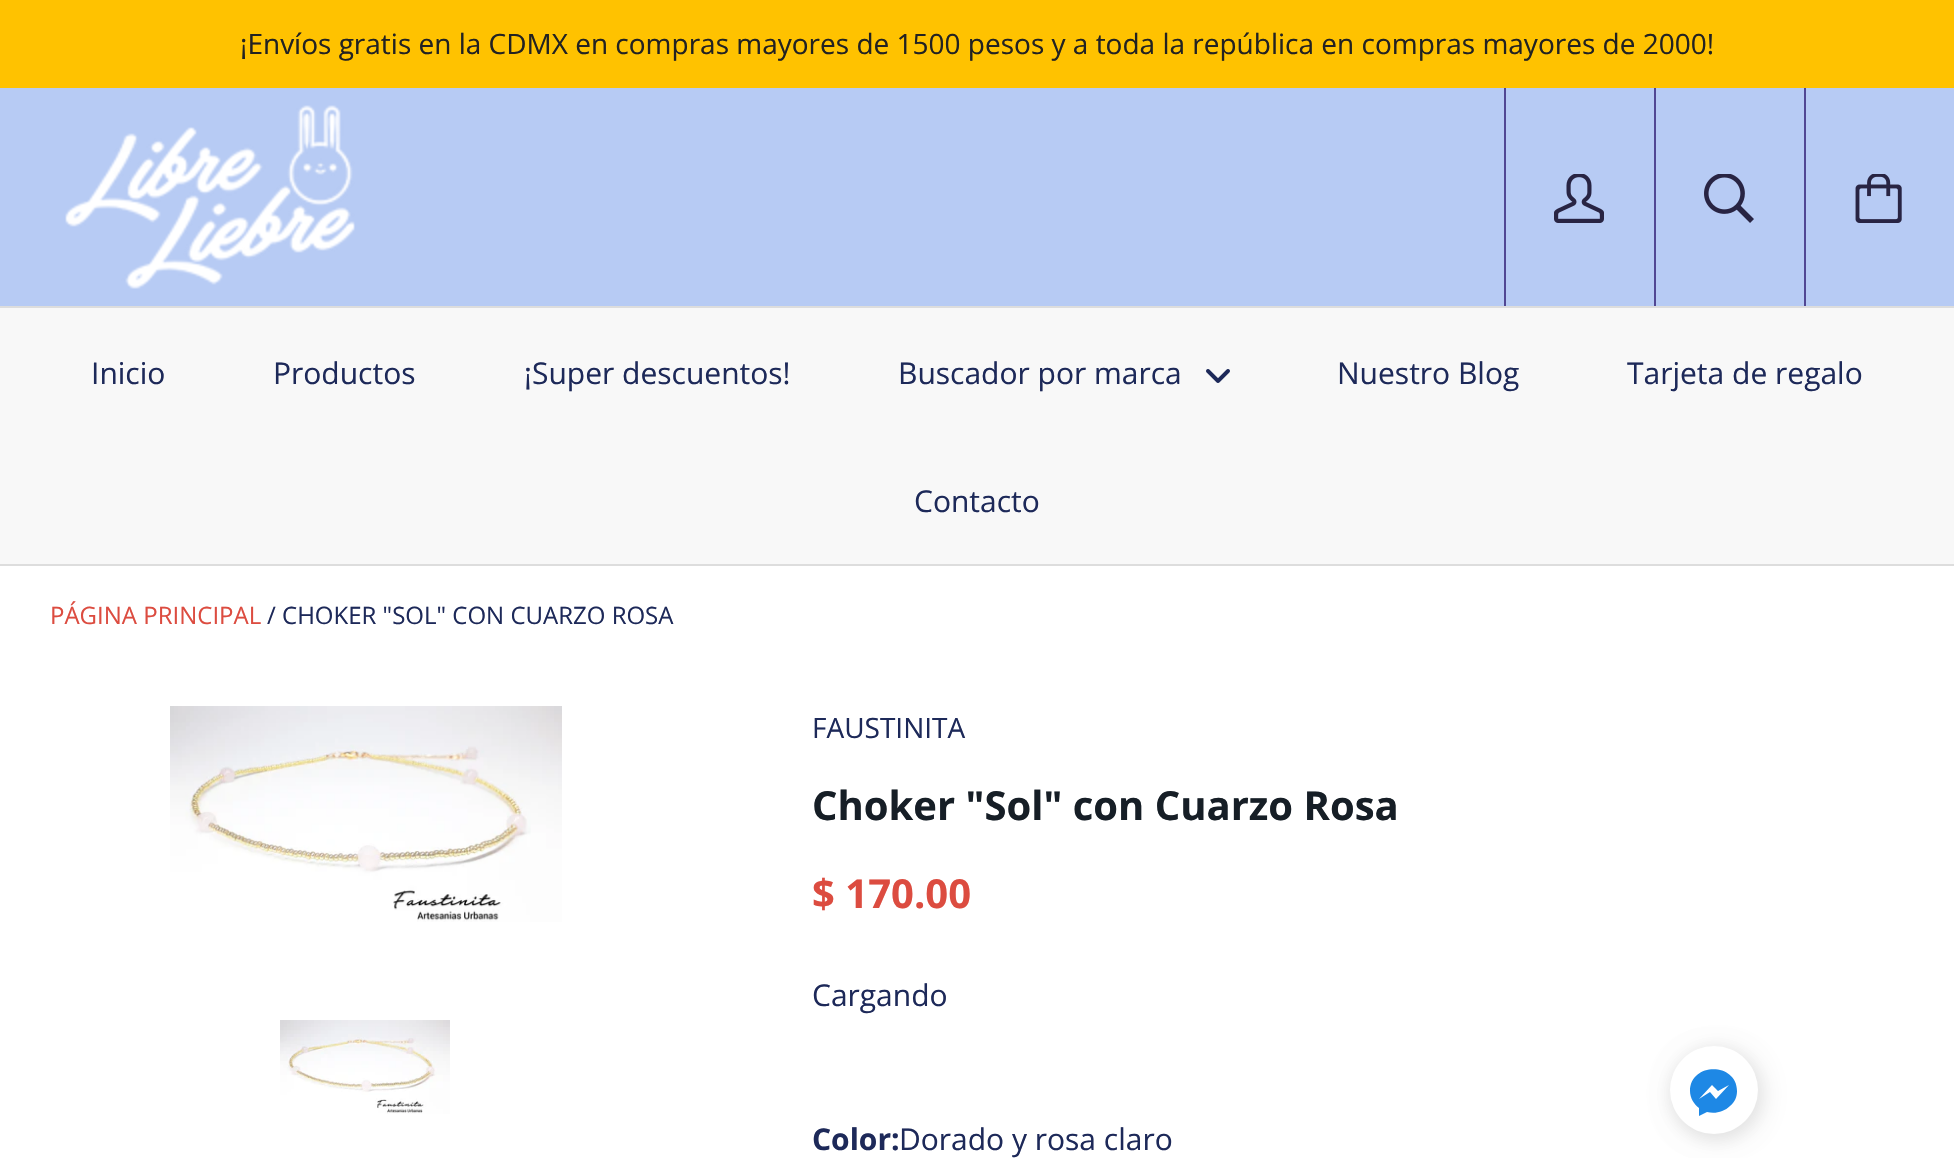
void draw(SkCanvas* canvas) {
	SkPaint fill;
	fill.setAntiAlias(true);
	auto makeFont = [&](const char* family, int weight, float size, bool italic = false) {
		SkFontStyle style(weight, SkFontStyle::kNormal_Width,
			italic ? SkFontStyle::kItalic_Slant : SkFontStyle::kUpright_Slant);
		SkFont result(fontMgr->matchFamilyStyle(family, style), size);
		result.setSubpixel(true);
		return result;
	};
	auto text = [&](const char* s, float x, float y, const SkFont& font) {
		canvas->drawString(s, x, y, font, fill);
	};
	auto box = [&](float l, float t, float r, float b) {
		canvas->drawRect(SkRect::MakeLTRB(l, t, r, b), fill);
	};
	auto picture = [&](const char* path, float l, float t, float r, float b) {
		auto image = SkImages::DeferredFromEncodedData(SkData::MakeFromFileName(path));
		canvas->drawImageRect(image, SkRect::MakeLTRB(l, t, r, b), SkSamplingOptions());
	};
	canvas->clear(0xFFFFFFFF);
	fill.setColor(0xFFFFC200);
	box(0, 0, 1954, 88);
	fill.setColor(0xFFB7CBF4);
	box(0, 88, 1954, 306);
	fill.setColor(0xFFDDDDDD);
	box(0, 564, 1954, 566);
	picture("image0.png", 65, 105, 355, 289);
	fill.setColor(0xFF514793);
	box(1504, 88, 1506, 306);
	picture("image1.png", 1554, 174, 1604, 223);
	box(1654, 88, 1656, 306);
	picture("image2.png", 1704, 174, 1754, 223);
	box(1804, 88, 1806, 306);
	picture("image3.png", 1855, 174, 1902, 223);
	fill.setColor(0xFFF8F8F8);
	box(0, 308, 1954, 564);
	fill.setColor(0xFFDDDDDD);
	box(0, 306, 1954, 308);
	picture("image4.png", 1206, 369, 1230, 383);
	picture("image5.png", 170, 706, 562, 922);
	picture("image6.png", 280, 1020, 450, 1114);
	fill.setColor(0x12000000);
	fill.setMaskFilter(SkMaskFilter::MakeBlur(kNormal_SkBlurStyle, 9));
	canvas->drawRoundRect(SkRect::MakeLTRB(1670, 1046, 1766, 1142), 48, 48, fill);
	fill.setMaskFilter(nullptr);
	fill.setColor(0x0D000000);
	fill.setMaskFilter(SkMaskFilter::MakeBlur(kNormal_SkBlurStyle, 10));
	canvas->drawRoundRect(SkRect::MakeLTRB(1670, 1050, 1758, 1138), 44, 44, fill);
	fill.setMaskFilter(nullptr);
	fill.setColor(0xFFFFFFFF);
	canvas->drawCircle(1714, 1090, 44, fill);
	fill.setColor(0xFF1E88E5);
	canvas->drawPath(SkPathBuilder(SkPathFillType::kEvenOdd).moveTo(1690, 1091).cubicTo(1690, 1062, 1737, 1062, 1737, 1091).cubicTo(1737, 1097, 1735, 1102, 1730, 1106).cubicTo(1724, 1112, 1715, 1114, 1707, 1112).lineTo(1699, 1116).lineTo(1699, 1108).cubicTo(1694, 1104, 1690, 1098, 1690, 1091).close().moveTo(1710, 1092).lineTo(1716, 1099).lineTo(1729, 1085).lineTo(1718, 1091).lineTo(1712, 1085).lineTo(1699, 1099).close().detach(), fill);
	auto font1 = makeFont("Open Sans", 400, 28);
	fill.setColor(0xFF222222);
	text("¡Envíos gratis en la CDMX en compras mayores de 1500 pesos y a toda la república en compras mayores de 2000!", 240, 54, font1);
	auto font2 = makeFont("Open Sans", 400, 30);
	fill.setColor(0xFF1D2959);
	text("Inicio", 91, 384, font2);
	text("Productos", 273, 384, font2);
	text("¡Super descuentos!", 524, 384, font2);
	text("Buscador por marca", 898, 384, font2);
	text("Nuestro Blog", 1337, 384, font2);
	text("Tarjeta de regalo", 1627, 384, font2);
	text("Contacto", 914, 512, font2);
	auto font3 = makeFont("Open Sans", 400, 24);
	fill.setColor(0xFFDC4C40);
	text("PÁGINA PRINCIPAL", 50, 624, font3);
	fill.setColor(0xFF1D2959);
	text("/ CHOKER \"SOL\" CON CUARZO ROSA", 267, 624, font3);
	text("FAUSTINITA", 812, 738, font1);
	auto font4 = makeFont("Open Sans", 700, 40);
	fill.setColor(0xFF161E26);
	text("Choker \"Sol\" con Cuarzo Rosa", 812, 820, font4);
	fill.setColor(0xFFDC4C40);
	text("$ 170.00", 812, 908, font4);
	fill.setColor(0xFF1D2959);
	text("Cargando", 812, 1006, font2);
	auto font5 = makeFont("Open Sans", 700, 30);
	text("Color:", 812, 1150, font5);
	text("Dorado y rosa claro", 899, 1150, font2);
}
